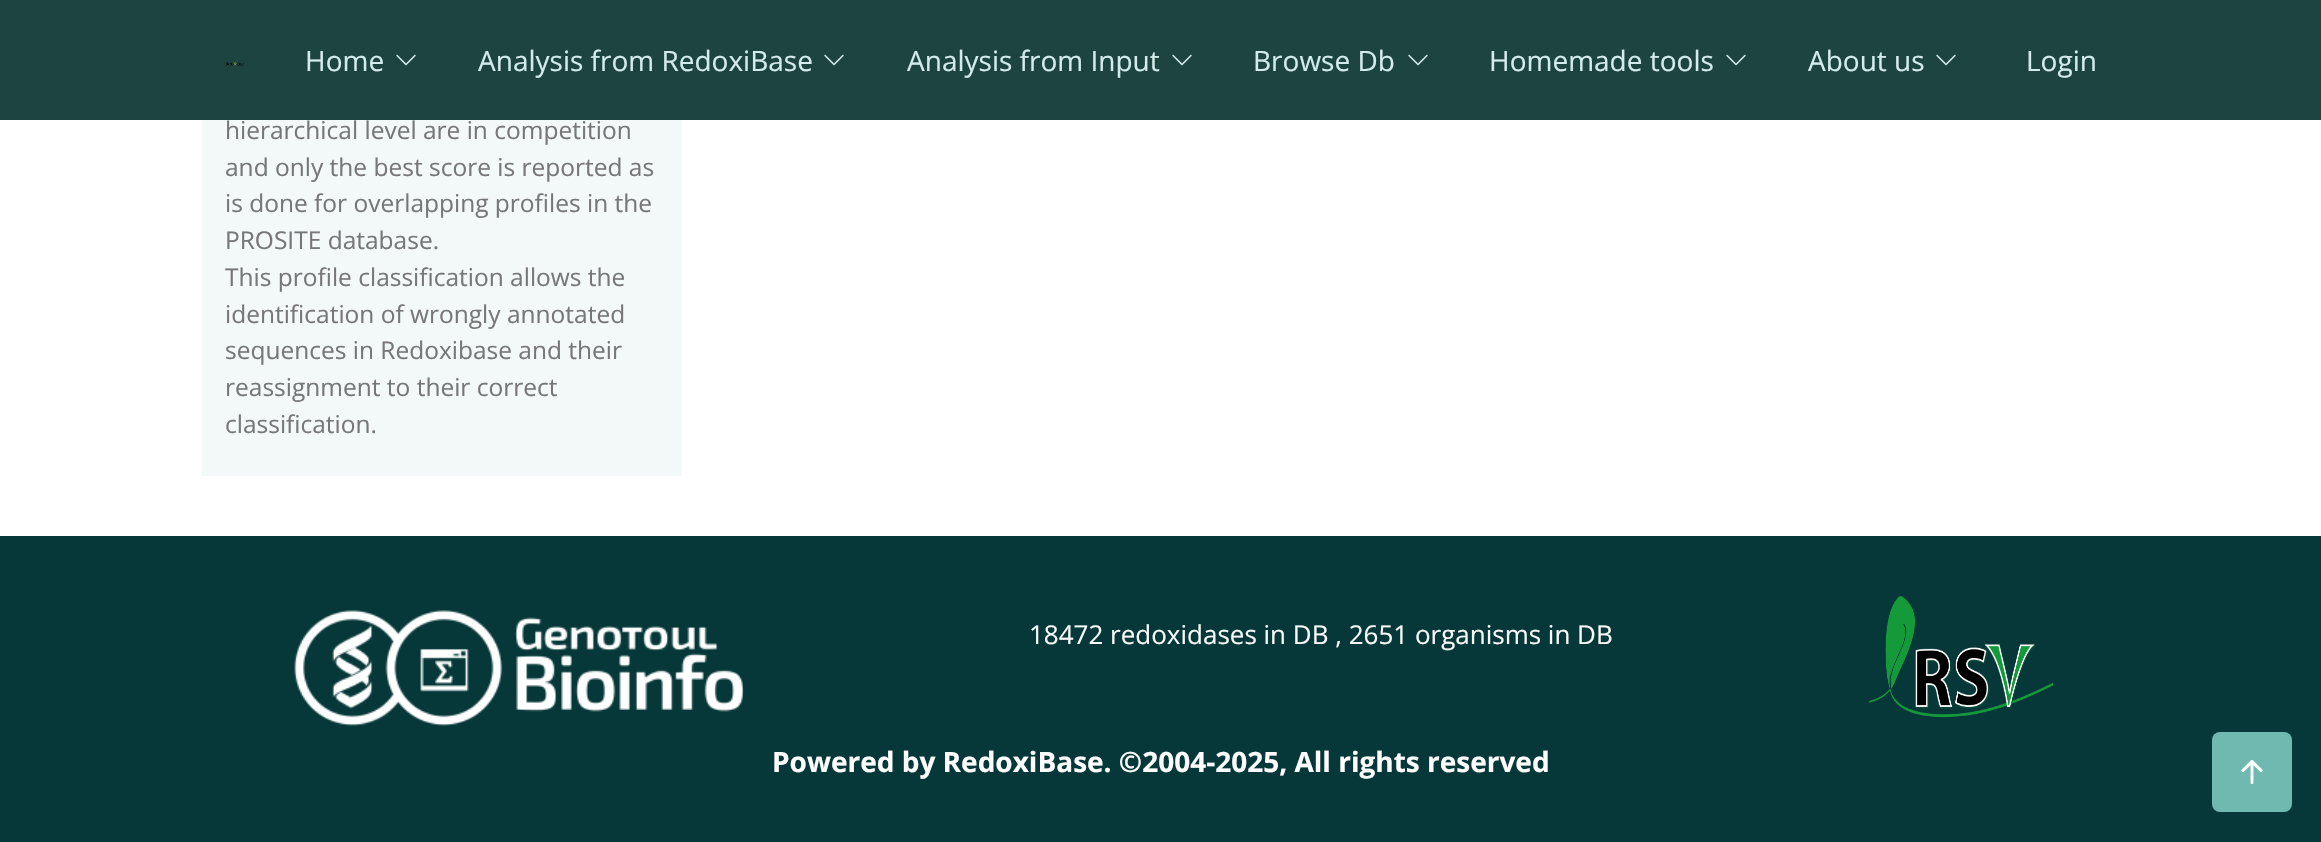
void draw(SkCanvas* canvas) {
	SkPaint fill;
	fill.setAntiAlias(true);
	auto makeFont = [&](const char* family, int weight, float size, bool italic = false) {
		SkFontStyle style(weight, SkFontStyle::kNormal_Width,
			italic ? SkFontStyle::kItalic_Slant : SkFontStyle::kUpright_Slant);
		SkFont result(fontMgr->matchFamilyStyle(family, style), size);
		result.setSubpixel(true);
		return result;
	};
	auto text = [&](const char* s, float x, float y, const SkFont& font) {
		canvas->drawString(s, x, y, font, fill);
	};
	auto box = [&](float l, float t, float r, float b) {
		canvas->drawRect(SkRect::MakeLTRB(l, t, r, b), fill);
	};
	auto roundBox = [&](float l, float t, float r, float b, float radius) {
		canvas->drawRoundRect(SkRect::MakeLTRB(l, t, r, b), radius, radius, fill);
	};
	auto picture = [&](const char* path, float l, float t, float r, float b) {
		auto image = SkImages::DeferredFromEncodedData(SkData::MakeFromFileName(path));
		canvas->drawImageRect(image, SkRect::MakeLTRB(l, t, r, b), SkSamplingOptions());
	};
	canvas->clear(0xFFFFFFFF);
	fill.setColor(0xFF1D443F);
	box(0, 0, 2321, 120);
	picture("image0.png", 226, 62, 244, 66);
	picture("image1.png", 396, 54, 416, 66);
	picture("image1.png", 824, 54, 844, 66);
	picture("image1.png", 1172, 54, 1192, 66);
	picture("image1.png", 1408, 54, 1428, 66);
	picture("image1.png", 1726, 54, 1746, 66);
	picture("image1.png", 1936, 54, 1956, 66);
	fill.setColor(0xFFF2F9F8);
	box(202, 120, 682, 476);
	fill.setColor(0xFF073839);
	box(0, 536, 2321, 842);
	picture("image2.png", 294, 610, 744, 726);
	picture("image3.png", 1869, 596, 2053, 718);
	fill.setColor(0xFF70B9B0);
	roundBox(2212, 732, 2292, 812, 8);
	picture("image4.png", 2241, 760, 2263, 784);
	auto font1 = makeFont("Open Sans", 400, 28);
	fill.setColor(0xFFD2ECE9);
	text("Home", 305, 71, font1);
	text("Analysis from RedoxiBase", 478, 71, font1);
	text("Analysis from Input", 907, 71, font1);
	text("Browse Db", 1253, 71, font1);
	text("Homemade tools", 1489, 71, font1);
	text("About us", 1808, 71, font1);
	text("Login", 2026, 71, font1);
	auto font2 = makeFont("Open Sans", 400, 24.5f);
	fill.setColor(0xFF777777);
	text("hierarchical level are in competition", 225, 139, font2);
	text("and only the best score is reported as", 225, 176, font2);
	text("is done for overlapping profiles in the", 225, 212, font2);
	text("PROSITE database.", 225, 249, font2);
	text("This profile classification allows the", 225, 286, font2);
	text("identification of wrongly annotated", 225, 323, font2);
	text("sequences in Redoxibase and their", 225, 359, font2);
	text("reassignment to their correct", 225, 396, font2);
	text("classification.", 225, 433, font2);
	auto font3 = makeFont("Open Sans", 400, 26);
	fill.setColor(0xFFF8F9FA);
	text("18472 redoxidases in DB , 2651 organisms in DB", 1029, 644, font3);
	auto font4 = makeFont("Open Sans", 700, 28);
	fill.setColor(0xFFFFFFFF);
	text("Powered by RedoxiBase. ©2004-2025, All rights reserved", 772, 772, font4);
}
